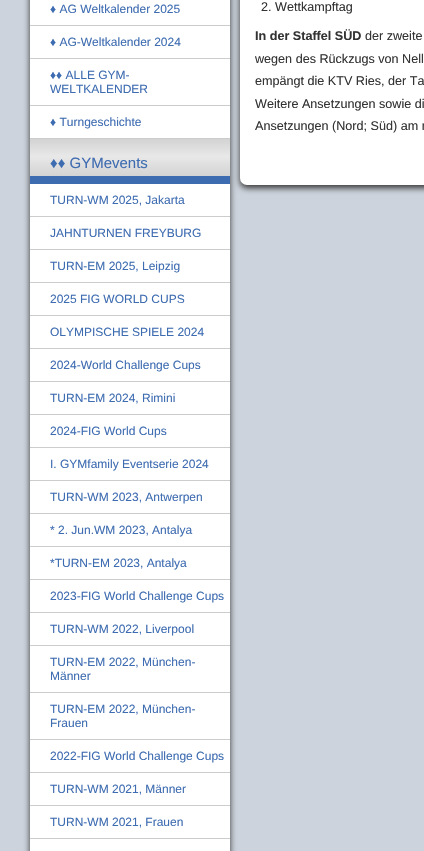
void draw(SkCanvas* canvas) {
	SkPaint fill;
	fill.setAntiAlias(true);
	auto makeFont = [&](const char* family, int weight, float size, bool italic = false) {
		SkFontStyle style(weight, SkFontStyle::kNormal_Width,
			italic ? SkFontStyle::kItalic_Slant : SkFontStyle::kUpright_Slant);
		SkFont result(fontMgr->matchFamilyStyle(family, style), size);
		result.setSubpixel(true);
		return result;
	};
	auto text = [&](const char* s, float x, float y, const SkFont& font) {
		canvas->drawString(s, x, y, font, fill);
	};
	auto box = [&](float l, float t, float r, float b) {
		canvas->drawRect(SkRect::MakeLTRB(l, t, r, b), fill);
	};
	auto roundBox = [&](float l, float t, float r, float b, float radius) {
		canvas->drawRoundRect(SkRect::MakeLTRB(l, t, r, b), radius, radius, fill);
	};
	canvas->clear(0xFFCCD3DC);
	fill.setColor(0xFF333333);
	fill.setMaskFilter(SkMaskFilter::MakeBlur(kNormal_SkBlurStyle, 3));
	canvas->drawRoundRect(SkRect::MakeLTRB(30, -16, 230, 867), 7, 7, fill);
	fill.setMaskFilter(nullptr);
	fill.setColor(0xFFFFFFFF);
	box(30, 0, 230, 851);
	fill.setColor(0xFFCCCCCC);
	box(30, 25, 230, 26);
	box(30, 58, 230, 59);
	box(30, 105, 230, 106);
	box(30, 138, 230, 139);
	{
		const SkColor colors[] = {0xFFD3D3D3, 0xFFE8E8E8, 0xFFD3D3D3};
		const float stops[] = {0, 0.47f, 1};
		const SkPoint ends[] = {{130, 139}, {130, 176}};
		fill.setShader(SkGradientShader::MakeLinear(ends, colors, stops, 3, SkTileMode::kClamp));
		fill.setAlpha(255);
	}
	box(30, 139, 230, 176);
	fill.setShader(nullptr);
	fill.setColor(0xFF3E6CB1);
	box(30, 176, 230, 184);
	fill.setColor(0xFFCCCCCC);
	box(30, 216, 230, 217);
	box(30, 249, 230, 250);
	box(30, 282, 230, 283);
	box(30, 315, 230, 316);
	box(30, 348, 230, 349);
	box(30, 381, 230, 382);
	box(30, 414, 230, 415);
	box(30, 447, 230, 448);
	box(30, 480, 230, 481);
	box(30, 513, 230, 514);
	box(30, 546, 230, 547);
	box(30, 579, 230, 580);
	box(30, 612, 230, 613);
	box(30, 645, 230, 646);
	box(30, 692, 230, 693);
	box(30, 739, 230, 740);
	box(30, 772, 230, 773);
	box(30, 805, 230, 806);
	box(30, 838, 230, 839);
	fill.setColor(0xFF333333);
	fill.setMaskFilter(SkMaskFilter::MakeBlur(kNormal_SkBlurStyle, 3));
	canvas->drawRoundRect(SkRect::MakeLTRB(240, -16, 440, 188), 7, 7, fill);
	fill.setMaskFilter(nullptr);
	fill.setColor(0xFFFFFFFF);
	roundBox(240, -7, 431, 185, 7);
	auto font1 = makeFont("Liberation Sans", 400, 12);
	fill.setColor(0xFF3E6CB1);
	text("♦ AG Weltkalender 2025", 50, 13, font1);
	text("♦ AG-Weltkalender 2024", 50, 46, font1);
	text("♦♦ ALLE GYM-", 50, 79, font1);
	text("WELTKALENDER", 50, 93, font1);
	text("♦ Turngeschichte", 50, 126, font1);
	auto font2 = makeFont("Liberation Sans", 400, 15);
	text("♦♦ GYMevents", 50, 168, font2);
	text("TURN-WM 2025, Jakarta", 50, 204, font1);
	text("JAHNTURNEN FREYBURG", 50, 237, font1);
	text("TURN-EM 2025, Leipzig", 50, 270, font1);
	text("2025 FIG WORLD CUPS", 50, 303, font1);
	text("OLYMPISCHE SPIELE 2024", 50, 336, font1);
	text("2024-World Challenge Cups", 50, 369, font1);
	text("TURN-EM 2024, Rimini", 50, 402, font1);
	text("2024-FIG World Cups", 50, 435, font1);
	text("I. GYMfamily Eventserie 2024", 50, 468, font1);
	text("TURN-WM 2023, Antwerpen", 50, 501, font1);
	text("* 2. Jun.WM 2023, Antalya", 50, 534, font1);
	text("*TURN-EM 2023, Antalya", 50, 567, font1);
	text("2023-FIG World Challenge Cups", 50, 600, font1);
	text("TURN-WM 2022, Liverpool", 50, 633, font1);
	text("TURN-EM 2022, München-", 50, 666, font1);
	text("Männer", 50, 680, font1);
	text("TURN-EM 2022, München-", 50, 713, font1);
	text("Frauen", 50, 727, font1);
	text("2022-FIG World Challenge Cups", 50, 760, font1);
	text("TURN-WM 2021, Männer", 50, 793, font1);
	text("TURN-WM 2021, Frauen", 50, 826, font1);
	auto font3 = makeFont("Liberation Sans", 400, 12.6f);
	fill.setColor(0xFF333333);
	text("2. Wettkampftag", 261, 11, font3);
	auto font4 = makeFont("Liberation Sans", 700, 12.6f);
	text("In der Staffel SÜD", 255, 40, font4);
	text("der zweite", 365, 40, font3);
	text("wegen des Rückzugs von Nell", 255, 63, font3);
	text("empängt die KTV Ries, der Ta", 255, 85, font3);
	text("Weitere Ansetzungen sowie di", 255, 108, font3);
	text("Ansetzungen (Nord; Süd) am r", 255, 130, font3);
}
